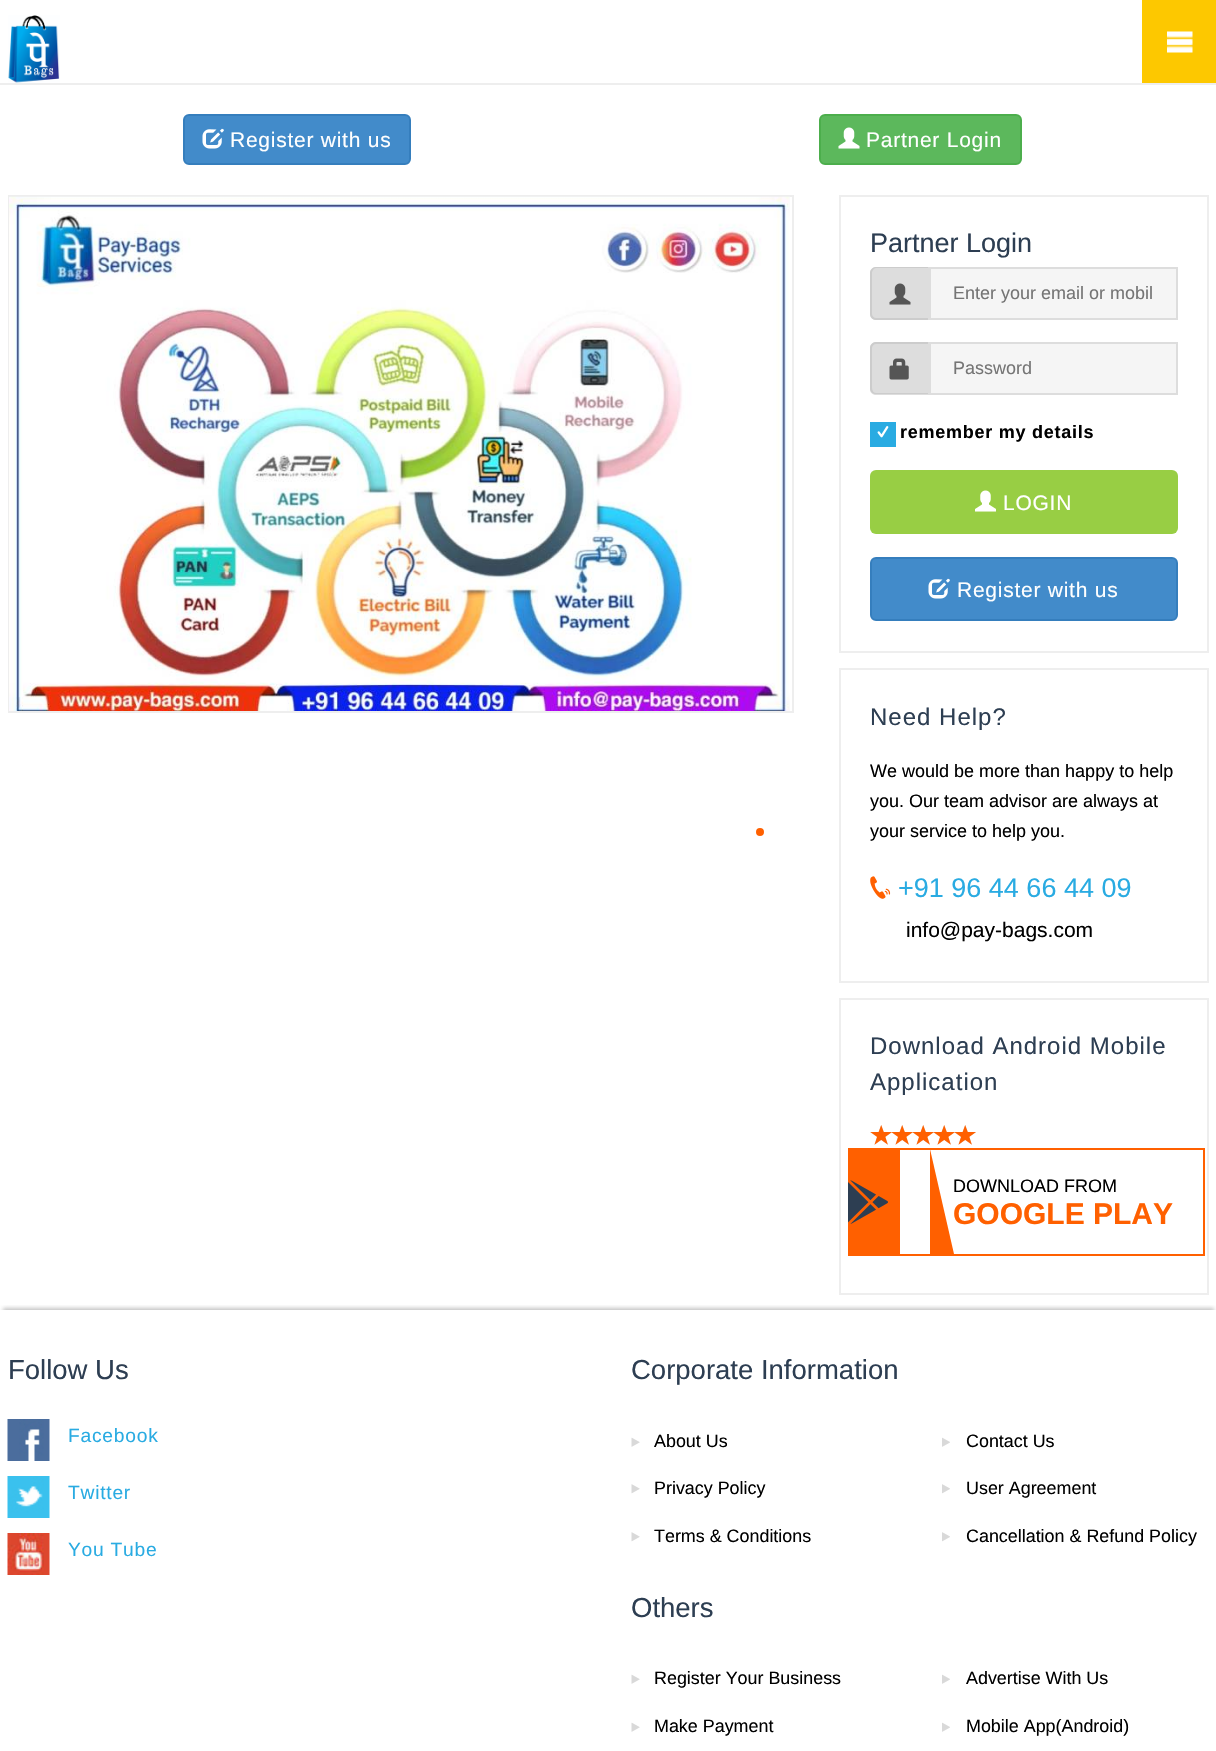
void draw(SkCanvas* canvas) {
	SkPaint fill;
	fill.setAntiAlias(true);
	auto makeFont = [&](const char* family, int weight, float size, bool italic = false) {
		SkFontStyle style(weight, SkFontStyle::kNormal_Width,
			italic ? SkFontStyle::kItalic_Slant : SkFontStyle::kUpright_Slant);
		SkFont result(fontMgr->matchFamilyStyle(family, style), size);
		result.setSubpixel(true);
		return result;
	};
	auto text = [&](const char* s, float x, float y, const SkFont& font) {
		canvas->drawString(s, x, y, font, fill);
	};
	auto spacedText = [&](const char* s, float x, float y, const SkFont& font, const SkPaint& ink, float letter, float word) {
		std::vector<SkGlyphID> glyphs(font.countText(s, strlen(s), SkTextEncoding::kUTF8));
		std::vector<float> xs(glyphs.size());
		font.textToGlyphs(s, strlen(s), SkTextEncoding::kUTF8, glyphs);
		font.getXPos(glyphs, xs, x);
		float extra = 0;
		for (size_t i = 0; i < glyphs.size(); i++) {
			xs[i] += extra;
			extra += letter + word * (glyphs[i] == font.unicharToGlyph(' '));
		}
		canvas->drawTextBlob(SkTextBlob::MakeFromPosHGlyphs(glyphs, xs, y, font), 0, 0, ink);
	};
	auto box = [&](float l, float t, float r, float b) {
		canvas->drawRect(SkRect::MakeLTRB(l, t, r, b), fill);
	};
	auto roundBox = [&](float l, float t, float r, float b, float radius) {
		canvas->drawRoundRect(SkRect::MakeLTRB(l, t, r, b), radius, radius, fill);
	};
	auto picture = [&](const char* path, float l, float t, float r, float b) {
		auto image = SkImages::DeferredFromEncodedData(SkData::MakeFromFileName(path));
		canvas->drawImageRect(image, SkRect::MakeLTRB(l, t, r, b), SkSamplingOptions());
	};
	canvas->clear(0xFFFFFFFF);
	fill.setColor(0xFFEEEEEE);
	box(0, 83, 1216, 85);
	picture("image0.png", 8, 15, 60, 83);
	fill.setColor(0xFFFDC800);
	box(1142, 0, 1216, 83);
	picture("image1.png", 1167, 31, 1193, 53);
	fill.setColor(0xFF428BCA);
	canvas->drawRoundRect(SkRect::MakeLTRB(184, 115, 410, 164), 5, 5, fill);
	fill.setStyle(SkPaint::kStroke_Style);
	fill.setStrokeWidth(2);
	fill.setColor(0xFF357EBD);
	canvas->drawRoundRect(SkRect::MakeLTRB(184, 115, 410, 164), 5, 5, fill);
	picture("image2.png", 202, 128, 224, 149);
	fill.setStyle(SkPaint::kFill_Style);
	fill.setColor(0xFF5CB85C);
	canvas->drawRoundRect(SkRect::MakeLTRB(820, 115, 1021, 164), 5, 5, fill);
	fill.setStyle(SkPaint::kStroke_Style);
	fill.setColor(0xFF4CAE4C);
	canvas->drawRoundRect(SkRect::MakeLTRB(820, 115, 1021, 164), 5, 5, fill);
	picture("image3.png", 838, 127, 860, 149);
	fill.setColor(0xFFEEEEEE);
	canvas->drawRect(SkRect::MakeLTRB(9, 196, 793, 712), fill);
	picture("image4.png", 9, 196, 790, 711);
	fill.setStyle(SkPaint::kFill_Style);
	fill.setColor(0xFFFF6000);
	canvas->drawCircle(760, 832, 3, fill);
	fill.setStyle(SkPaint::kStroke_Style);
	canvas->drawCircle(760, 832, 3, fill);
	fill.setColor(0xFFEEEEEE);
	canvas->drawRect(SkRect::MakeLTRB(840, 196, 1208, 652), fill);
	fill.setStyle(SkPaint::kFill_Style);
	fill.setColor(0xFFDDDDDD);
	canvas->drawPath(SkPathBuilder().moveTo(876, 267).lineTo(929, 267).lineTo(929, 320).lineTo(876, 320).cubicTo(872.5f, 320, 870, 317.5f, 870, 314).lineTo(870, 273).cubicTo(870, 269.5f, 872.5f, 267, 876, 267).close().detach(), fill);
	fill.setColor(0xFFCCCCCC);
	canvas->drawPath(SkPathBuilder(SkPathFillType::kEvenOdd).moveTo(876, 267).lineTo(928, 267).lineTo(928, 320).lineTo(876, 320).cubicTo(873, 320, 870, 317, 870, 314).lineTo(870, 273).cubicTo(870, 270, 873, 267, 876, 267).close().moveTo(876, 268).lineTo(928, 268).lineTo(928, 318).lineTo(876, 318).cubicTo(874, 318, 872, 316, 872, 314).lineTo(872, 273).cubicTo(872, 271, 874, 268, 876, 268).close().detach(), fill);
	picture("image5.png", 889, 283, 911, 305);
	fill.setColor(0xFFF5F5F5);
	canvas->drawRect(SkRect::MakeLTRB(930, 268, 1177, 319), fill);
	fill.setStyle(SkPaint::kStroke_Style);
	fill.setColor(0xFFDDDDDD);
	canvas->drawRect(SkRect::MakeLTRB(930, 268, 1177, 319), fill);
	fill.setStyle(SkPaint::kFill_Style);
	canvas->drawPath(SkPathBuilder().moveTo(876, 342).lineTo(929, 342).lineTo(929, 395).lineTo(876, 395).cubicTo(872.5f, 395, 870, 392.5f, 870, 389).lineTo(870, 348).cubicTo(870, 344.5f, 872.5f, 342, 876, 342).close().detach(), fill);
	fill.setColor(0xFFCCCCCC);
	canvas->drawPath(SkPathBuilder(SkPathFillType::kEvenOdd).moveTo(876, 342).lineTo(928, 342).lineTo(928, 394).lineTo(876, 394).cubicTo(873, 394, 870, 392, 870, 388).lineTo(870, 348).cubicTo(870, 345, 873, 342, 876, 342).close().moveTo(876, 344).lineTo(928, 344).lineTo(928, 393).lineTo(876, 393).cubicTo(874, 393, 872, 391, 872, 388).lineTo(872, 348).cubicTo(872, 346, 874, 344, 876, 344).close().detach(), fill);
	picture("image6.png", 889, 358, 909, 380);
	fill.setColor(0xFFF5F5F5);
	canvas->drawRect(SkRect::MakeLTRB(930, 343, 1177, 394), fill);
	fill.setStyle(SkPaint::kStroke_Style);
	fill.setColor(0xFFDDDDDD);
	canvas->drawRect(SkRect::MakeLTRB(930, 343, 1177, 394), fill);
	fill.setStyle(SkPaint::kFill_Style);
	fill.setColor(0xFF29ABE2);
	box(870, 422, 896, 447);
	picture("image7.png", 877, 426, 889, 438);
	fill.setColor(0xFF98CE44);
	roundBox(870, 470, 1178, 534, 6);
	picture("image8.png", 975, 490, 996, 512);
	fill.setColor(0xFF428BCA);
	canvas->drawRoundRect(SkRect::MakeLTRB(871, 558, 1177, 620), 5, 5, fill);
	fill.setStyle(SkPaint::kStroke_Style);
	fill.setColor(0xFF357EBD);
	canvas->drawRoundRect(SkRect::MakeLTRB(871, 558, 1177, 620), 5, 5, fill);
	picture("image9.png", 928, 578, 950, 599);
	fill.setColor(0xFFEEEEEE);
	canvas->drawRect(SkRect::MakeLTRB(840, 669, 1208, 982), fill);
	picture("image10.png", 870, 876, 891, 899);
	canvas->drawRect(SkRect::MakeLTRB(840, 999, 1208, 1294), fill);
	picture("image11.png", 870, 1125, 976, 1145);
	picture("image12.png", 870, 1125, 976, 1145);
	fill.setStyle(SkPaint::kFill_Style);
	fill.setColor(0xFFFF6000);
	box(848, 1148, 1205, 1150);
	box(1203, 1148, 1205, 1256);
	box(848, 1254, 1205, 1256);
	box(848, 1150, 900, 1254);
	picture("image13.png", 848, 1180, 888, 1224);
	canvas->save();
	canvas->clipRect(SkRect::MakeLTRB(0, 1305, 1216, 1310));
	fill.setColor(0x80888888);
	fill.setMaskFilter(SkMaskFilter::MakeBlur(kNormal_SkBlurStyle, 2));
	canvas->drawRect(SkRect::MakeLTRB(3, 1308, 1214, 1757), fill);
	fill.setMaskFilter(nullptr);
	canvas->restore();
	picture("image14.png", 7, 1419, 50, 1461);
	picture("image15.png", 7, 1476, 50, 1518);
	picture("image16.png", 7, 1533, 50, 1575);
	picture("image17.png", 631, 1437, 640, 1447);
	picture("image18.png", 942, 1437, 950, 1447);
	picture("image19.png", 631, 1484, 640, 1494);
	picture("image20.png", 942, 1484, 950, 1494);
	picture("image19.png", 631, 1532, 640, 1542);
	picture("image20.png", 942, 1532, 950, 1542);
	picture("image17.png", 631, 1674, 640, 1684);
	picture("image18.png", 942, 1674, 950, 1684);
	picture("image17.png", 631, 1722, 640, 1732);
	picture("image18.png", 942, 1722, 950, 1732);
	auto font1 = makeFont("Liberation Sans", 400, 21);
	fill.setColor(0xFFFFFFFF);
	spacedText("Register with us", 230, 147, font1, fill, 0.75f, 0);
	spacedText("Partner Login", 866, 147, font1, fill, 0.75f, 0);
	auto font2 = makeFont("Liberation Sans", 400, 27);
	fill.setColor(0xFF2D3E52);
	text("Partner Login", 870, 252, font2);
	auto font3 = makeFont("Liberation Sans", 400, 18);
	fill.setColor(0xFF757575);
	text("Enter your email or mobil", 953, 299, font3);
	text("Password", 953, 374, font3);
	auto font4 = makeFont("Liberation Sans", 700, 18);
	fill.setColor(0xFF000000);
	spacedText("remember my details", 900, 438, font4, fill, 0.75f, 0);
	fill.setColor(0xFFFFFFFF);
	spacedText("LOGIN", 1003, 510, font1, fill, 0.75f, 0);
	spacedText("Register with us", 957, 597, font1, fill, 0.75f, 0);
	auto font5 = makeFont("Liberation Sans", 400, 24);
	fill.setColor(0xFF2D3E52);
	spacedText("Need Help?", 870, 725, font5, fill, 1, 0);
	fill.setColor(0xFF000000);
	text("We would be more than happy to help", 870, 777, font3);
	text("you. Our team advisor are always at", 870, 807, font3);
	text("your service to help you.", 870, 837, font3);
	fill.setColor(0xFF29ABE2);
	text("+91 96 44 66 44 09", 898, 897, font2);
	fill.setColor(0xFF000000);
	text("info@pay-bags.com", 906, 937, font1);
	fill.setColor(0xFF2D3E52);
	spacedText("Download Android Mobile", 870, 1054, font5, fill, 1, 0);
	spacedText("Application", 870, 1090, font5, fill, 1, 0);
	fill.setColor(0xFF000000);
	text("DOWNLOAD FROM", 953, 1192, font3);
	fill.setColor(0xFFFF6000);
	canvas->drawPath(SkPathBuilder().moveTo(954, 1254).lineTo(930, 1254).lineTo(930, 1149).close().detach(), fill);
	auto font6 = makeFont("Liberation Sans", 700, 30);
	text("GOOGLE PLAY", 953, 1224, font6);
	auto font7 = makeFont("Liberation Sans", 400, 27.5f);
	fill.setColor(0xFF2D3E52);
	text("Follow Us", 8, 1379, font7);
	auto font8 = makeFont("Liberation Sans", 400, 19.25f);
	fill.setColor(0xFF29ABE2);
	spacedText("Facebook", 68, 1442, font8, fill, 0.75f, 0);
	spacedText("Twitter", 68, 1499, font8, fill, 0.75f, 0);
	spacedText("You Tube", 68, 1556, font8, fill, 0.75f, 0);
	fill.setColor(0xFF2D3E52);
	text("Corporate Information", 631, 1379, font7);
	auto font9 = makeFont("Liberation Sans", 400, 17.9f);
	fill.setColor(0xFF000000);
	text("About Us", 654, 1447, font9);
	text("Contact Us", 966, 1447, font9);
	text("Privacy Policy", 654, 1494, font9);
	text("User Agreement", 966, 1494, font9);
	text("Terms & Conditions", 654, 1542, font9);
	text("Cancellation & Refund Policy", 966, 1542, font9);
	fill.setColor(0xFF2D3E52);
	text("Others", 631, 1617, font7);
	fill.setColor(0xFF000000);
	text("Register Your Business", 654, 1684, font9);
	text("Advertise With Us", 966, 1684, font9);
	text("Make Payment", 654, 1732, font9);
	text("Mobile App(Android)", 966, 1732, font9);
}
